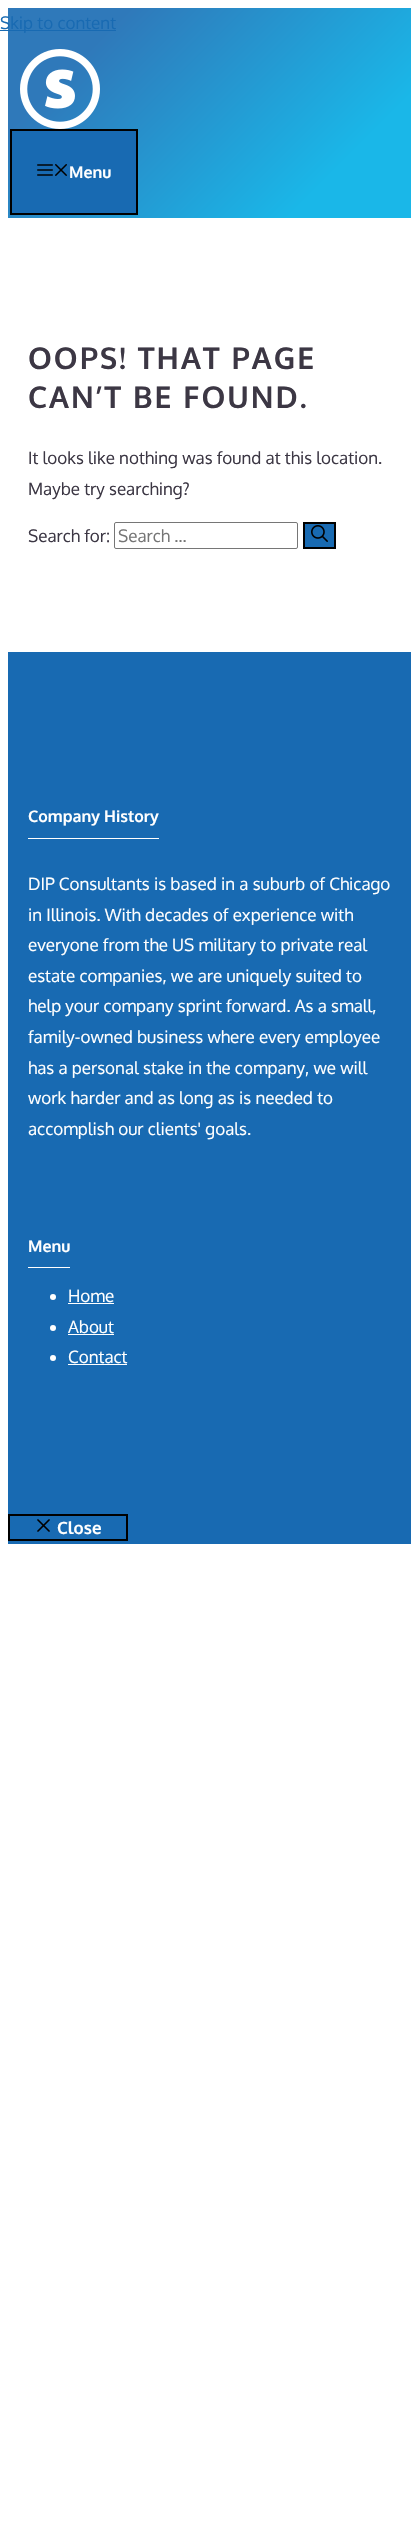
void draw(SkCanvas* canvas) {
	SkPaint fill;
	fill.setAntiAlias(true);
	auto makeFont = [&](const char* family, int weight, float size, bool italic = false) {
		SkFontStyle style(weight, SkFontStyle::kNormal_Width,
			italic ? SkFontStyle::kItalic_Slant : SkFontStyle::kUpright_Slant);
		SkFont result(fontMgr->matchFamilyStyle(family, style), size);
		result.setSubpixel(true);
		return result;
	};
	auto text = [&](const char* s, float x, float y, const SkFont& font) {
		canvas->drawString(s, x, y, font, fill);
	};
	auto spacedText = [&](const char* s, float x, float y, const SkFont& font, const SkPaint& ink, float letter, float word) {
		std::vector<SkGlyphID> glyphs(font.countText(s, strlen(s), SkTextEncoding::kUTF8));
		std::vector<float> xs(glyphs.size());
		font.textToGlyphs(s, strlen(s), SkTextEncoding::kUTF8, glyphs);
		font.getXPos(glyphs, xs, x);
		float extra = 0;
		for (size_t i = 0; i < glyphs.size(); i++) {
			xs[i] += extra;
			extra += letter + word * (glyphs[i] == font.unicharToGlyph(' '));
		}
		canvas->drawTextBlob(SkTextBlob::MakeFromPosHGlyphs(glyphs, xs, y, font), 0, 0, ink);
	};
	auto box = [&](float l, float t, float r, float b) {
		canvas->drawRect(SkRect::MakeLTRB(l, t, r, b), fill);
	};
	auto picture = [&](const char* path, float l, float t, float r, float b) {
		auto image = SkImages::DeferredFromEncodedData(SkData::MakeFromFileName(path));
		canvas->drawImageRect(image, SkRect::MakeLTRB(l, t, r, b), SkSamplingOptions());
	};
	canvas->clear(0xFFFFFFFF);
	{
		const SkColor colors[] = {0xFF2F79BA, 0xFF1AB7E8};
		const float stops[] = {0.2f, 0.8f};
		const SkPoint ends[] = {{56, -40}, {363, 266}};
		fill.setShader(SkGradientShader::MakeLinear(ends, colors, stops, 2, SkTileMode::kClamp));
		fill.setAlpha(255);
	}
	box(8, 8, 411, 218);
	fill.setShader(nullptr);
	fill.setColor(0xFF186AB2);
	box(0, 30, 116, 31);
	picture("image0.png", 20, 49, 100, 129);
	canvas->drawRect(SkRect::MakeLTRB(11, 130, 137, 214), fill);
	fill.setStyle(SkPaint::kStroke_Style);
	fill.setStrokeWidth(2);
	fill.setColor(0xFF000000);
	canvas->drawRect(SkRect::MakeLTRB(11, 130, 137, 214), fill);
	picture("image1.png", 37, 164, 53, 176);
	picture("image2.png", 55, 164, 67, 176);
	fill.setStrokeWidth(1);
	fill.setColor(0xFF767676);
	canvas->drawRoundRect(SkRect::MakeLTRB(114.5f, 522.5f, 297.5f, 548.5f), 1.5f, 1.5f, fill);
	fill.setStyle(SkPaint::kFill_Style);
	fill.setColor(0xFF186AB2);
	canvas->drawRect(SkRect::MakeLTRB(304, 523, 335, 548), fill);
	fill.setStyle(SkPaint::kStroke_Style);
	fill.setStrokeWidth(2);
	fill.setColor(0xFF000000);
	canvas->drawRect(SkRect::MakeLTRB(304, 523, 335, 548), fill);
	picture("image3.png", 311, 525, 328, 542);
	fill.setStyle(SkPaint::kFill_Style);
	fill.setColor(0xFF186AB2);
	box(8, 652, 411, 1544);
	fill.setColor(0xFFFFFFFF);
	box(28, 838, 159, 839);
	box(28, 1267, 70, 1268);
	canvas->drawCircle(53, 1297, 3, fill);
	box(68, 1303, 114, 1304);
	canvas->drawCircle(53, 1328, 3, fill);
	box(68, 1334, 114, 1335);
	canvas->drawCircle(53, 1358, 3, fill);
	box(68, 1364, 127, 1365);
	fill.setStyle(SkPaint::kStroke_Style);
	fill.setColor(0xFF000000);
	canvas->drawRect(SkRect::MakeLTRB(9, 1515, 127, 1540), fill);
	picture("image4.png", 37, 1519, 50, 1532);
	auto font1 = makeFont("Oxygen", 400, 17);
	fill.setStyle(SkPaint::kFill_Style);
	fill.setColor(0xFF186AB2);
	text("Skip to content", 0, 29, font1);
	auto font2 = makeFont("Oxygen", 700, 16);
	fill.setColor(0xFFFFFFFF);
	text("Menu", 69, 178, font2);
	auto font3 = makeFont("Oxygen", 700, 30);
	fill.setColor(0xFF3C3744);
	spacedText("OOPS! THAT PAGE", 28, 369, font3, fill, 2, 0);
	spacedText("CAN’T BE FOUND.", 28, 408, font3, fill, 2, 0);
	text("It looks like nothing was found at this location.", 28, 464, font1);
	text("Maybe try searching?", 28, 495, font1);
	text("Search for:", 28, 542, font1);
	fill.setColor(0xFF757575);
	text("Search …", 118, 542, font1);
	fill.setColor(0xFFFFFFFF);
	text("Company History", 28, 822, font2);
	text("DIP Consultants is based in a suburb of Chicago", 28, 890, font1);
	text("in Illinois. With decades of experience with", 28, 921, font1);
	text("everyone from the US military to private real", 28, 951, font1);
	text("estate companies, we are uniquely suited to", 28, 982, font1);
	text("help your company sprint forward. As a small,", 28, 1012, font1);
	text("family-owned business where every employee", 28, 1043, font1);
	text("has a personal stake in the company, we will", 28, 1074, font1);
	text("work harder and as long as is needed to", 28, 1104, font1);
	text("accomplish our clients' goals.", 28, 1135, font1);
	text("Menu", 28, 1252, font2);
	text("Home", 68, 1302, font1);
	text("About", 68, 1333, font1);
	text("Contact", 68, 1363, font1);
	auto font4 = makeFont("Oxygen", 700, 17);
	text("Close", 57, 1534, font4);
}
